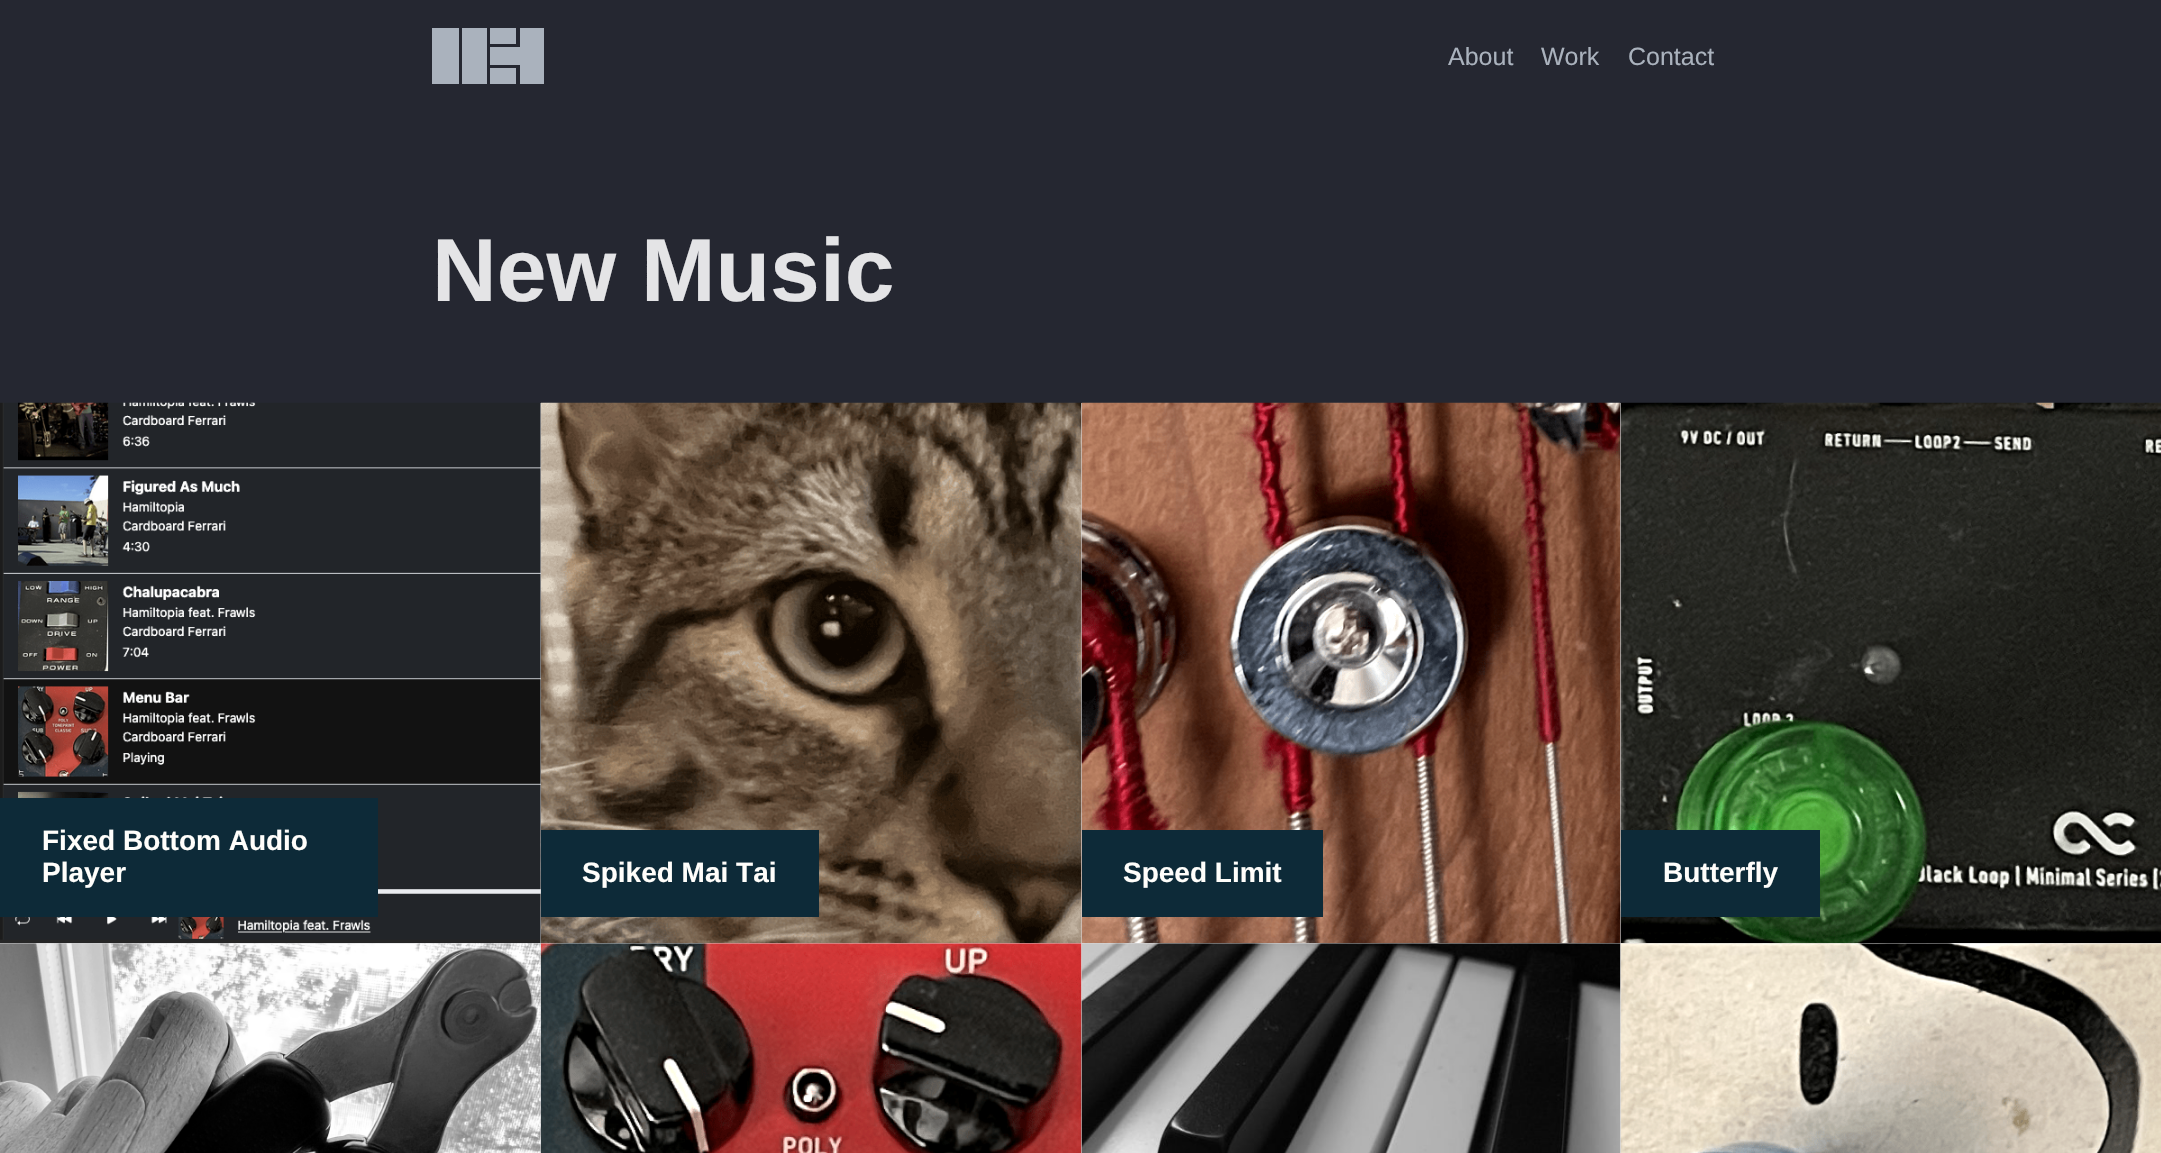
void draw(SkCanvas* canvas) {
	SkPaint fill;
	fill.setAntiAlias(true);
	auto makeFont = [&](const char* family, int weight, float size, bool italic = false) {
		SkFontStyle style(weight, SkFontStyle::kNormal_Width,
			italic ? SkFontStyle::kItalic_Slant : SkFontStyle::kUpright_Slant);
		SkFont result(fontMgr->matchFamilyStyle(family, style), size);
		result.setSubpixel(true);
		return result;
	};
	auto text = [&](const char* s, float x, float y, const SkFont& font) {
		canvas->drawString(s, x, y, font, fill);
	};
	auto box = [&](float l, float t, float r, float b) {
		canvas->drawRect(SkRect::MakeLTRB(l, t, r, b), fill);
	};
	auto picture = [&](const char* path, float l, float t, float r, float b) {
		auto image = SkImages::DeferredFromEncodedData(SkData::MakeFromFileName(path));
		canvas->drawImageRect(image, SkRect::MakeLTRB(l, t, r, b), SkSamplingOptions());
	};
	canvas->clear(0xFFE4E4E6);
	fill.setColor(0xFF252731);
	box(0, 0, 2161, 403);
	fill.setColor(0xFFAAB2BD);
	box(432, 28, 459, 84);
	box(462, 28, 487, 84);
	box(490, 28, 516, 44);
	box(520, 28, 544, 84);
	box(490, 47, 520, 65);
	box(490, 68, 516, 84);
	picture("image0.png", 6, 403, 2150, 1153);
	picture("image1.png", 0, 402, 541, 944);
	fill.setColor(0xFF0D2A38);
	box(0, 798, 378, 917);
	picture("image2.png", 540, 402, 1082, 944);
	box(541, 830, 819, 917);
	picture("image3.png", 1081, 402, 1621, 944);
	box(1082, 830, 1323, 917);
	picture("image4.png", 1620, 402, 2161, 944);
	box(1621, 830, 1820, 917);
	picture("image5.png", 0, 943, 541, 1153);
	picture("image6.png", 540, 943, 1082, 1153);
	picture("image7.png", 1081, 943, 1621, 1153);
	picture("image8.png", 1620, 943, 2161, 1153);
	auto font1 = makeFont("Liberation Sans", 400, 25);
	fill.setColor(0xFFAAB2BD);
	text("About", 1448, 65, font1);
	text("Work", 1541, 65, font1);
	text("Contact", 1628, 65, font1);
	auto font2 = makeFont("Liberation Sans", 700, 89.5f);
	fill.setColor(0xFFE4E4E6);
	text("New Music", 432, 301, font2);
	auto font3 = makeFont("Liberation Sans", 700, 28);
	fill.setColor(0xFFFFFEFB);
	text("Fixed Bottom Audio", 42, 850, font3);
	text("Player", 42, 882, font3);
	text("Spiked Mai Tai", 582, 882, font3);
	text("Speed Limit", 1123, 882, font3);
	text("Butterfly", 1663, 882, font3);
}
